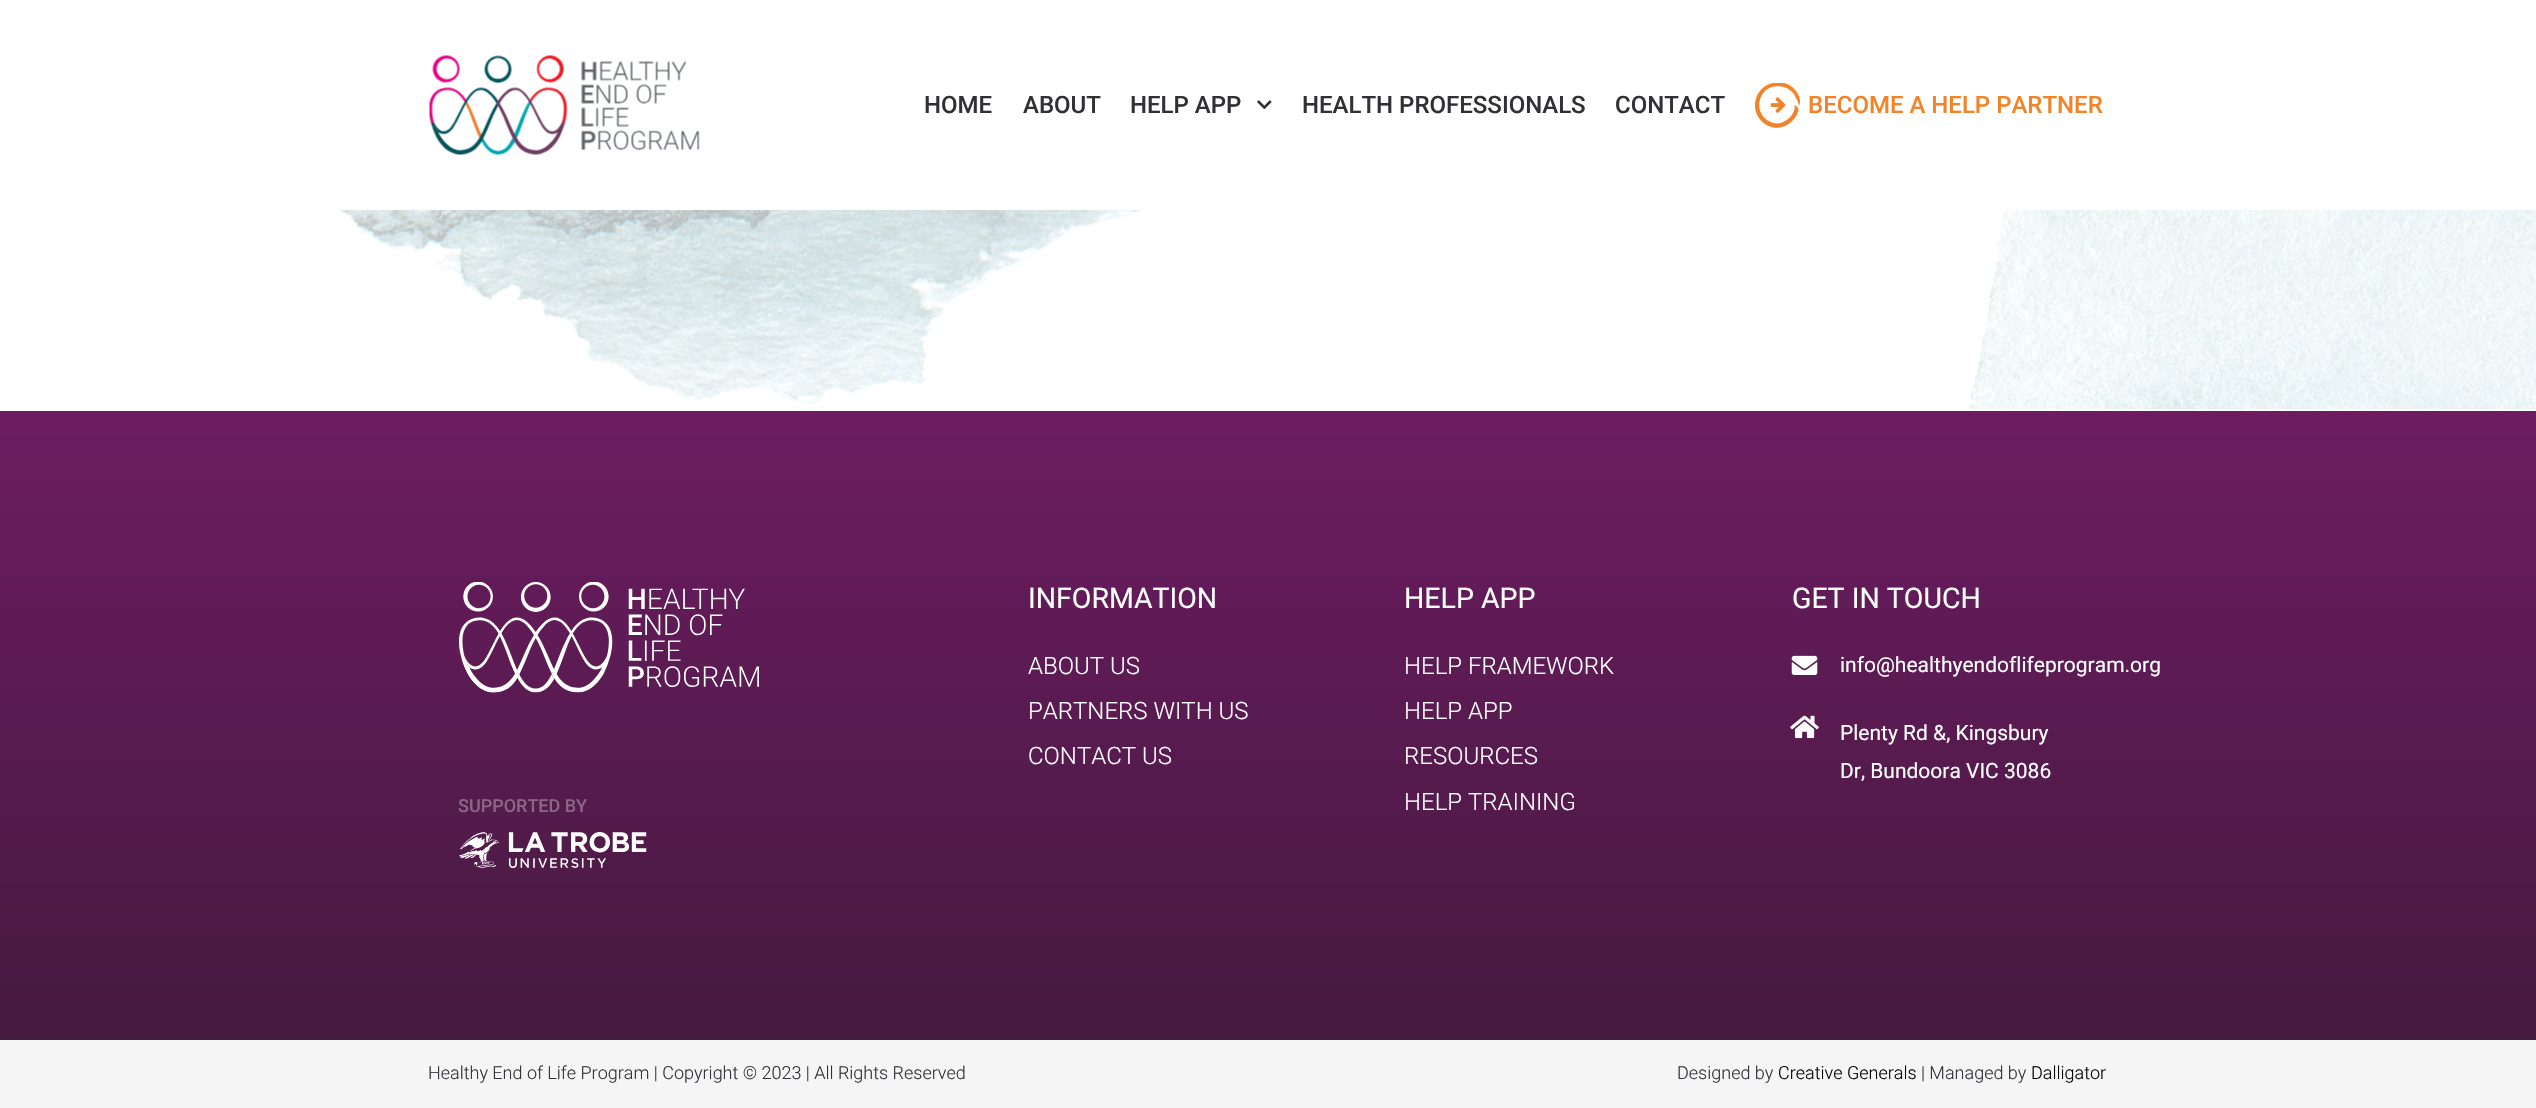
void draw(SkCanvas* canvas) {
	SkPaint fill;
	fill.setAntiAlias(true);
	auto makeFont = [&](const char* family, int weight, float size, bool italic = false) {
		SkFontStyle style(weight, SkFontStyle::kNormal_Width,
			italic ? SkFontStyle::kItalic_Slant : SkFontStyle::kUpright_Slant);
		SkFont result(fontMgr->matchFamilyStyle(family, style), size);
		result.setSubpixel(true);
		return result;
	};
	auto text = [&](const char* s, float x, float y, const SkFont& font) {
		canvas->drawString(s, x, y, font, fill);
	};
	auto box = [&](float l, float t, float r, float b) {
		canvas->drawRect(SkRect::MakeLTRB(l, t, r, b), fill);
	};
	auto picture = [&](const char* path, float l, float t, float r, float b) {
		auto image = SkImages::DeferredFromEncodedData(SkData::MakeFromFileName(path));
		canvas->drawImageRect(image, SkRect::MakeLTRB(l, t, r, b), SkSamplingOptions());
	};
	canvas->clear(0xFFFFFFFF);
	picture("image0.png", 429, 55, 700, 155);
	picture("image1.png", 1257, 100, 1272, 109);
	picture("image2.png", 1755, 83, 1800, 128);
	picture("image3.png", 340, 210, 1144, 405);
	picture("image4.png", 1968, 210, 2536, 409);
	{
		const SkColor colors[] = {0xFF6D1C62, 0xFF451A3F};
		const float stops[] = {0, 1};
		const SkPoint ends[] = {{1268, 411}, {1268, 1040}};
		fill.setShader(SkGradientShader::MakeLinear(ends, colors, stops, 2, SkTileMode::kClamp));
		fill.setAlpha(255);
	}
	box(0, 411, 2536, 1040);
	picture("image5.png", 1791, 655, 1818, 675);
	picture("image6.png", 1790, 715, 1819, 739);
	picture("image7.png", 459, 582, 759, 693);
	picture("image8.png", 459, 832, 647, 868);
	fill.setShader(nullptr);
	fill.setColor(0xFFF5F5F5);
	box(0, 1040, 2536, 1108);
	auto font1 = makeFont("Roboto", 500, 24);
	fill.setColor(0xFF303036);
	text("HOME", 924, 113, font1);
	text("ABOUT", 1023, 113, font1);
	text("HELP APP", 1130, 113, font1);
	text("HEALTH PROFESSIONALS", 1302, 113, font1);
	text("CONTACT", 1615, 113, font1);
	fill.setColor(0xFFF38328);
	text("BECOME A HELP PARTNER", 1808, 113, font1);
	auto font2 = makeFont("Roboto", 400, 28.5f);
	fill.setColor(0xFFFFFFFF);
	text("INFORMATION", 1028, 608, font2);
	auto font3 = makeFont("Roboto", 300, 24);
	text("ABOUT US", 1028, 674, font3);
	text("PARTNERS WITH US", 1028, 719, font3);
	text("CONTACT US", 1028, 764, font3);
	text("HELP APP", 1404, 608, font2);
	text("HELP FRAMEWORK", 1404, 674, font3);
	text("HELP APP", 1404, 719, font3);
	text("RESOURCES", 1404, 764, font3);
	text("HELP TRAINING", 1404, 810, font3);
	text("GET IN TOUCH", 1792, 608, font2);
	auto font4 = makeFont("Roboto", 400, 21);
	text("info@healthyendoflifeprogram.org", 1840, 672, font4);
	text("Plenty Rd &, Kingsbury", 1840, 740, font4);
	text("Dr, Bundoora VIC 3086", 1840, 778, font4);
	auto font5 = makeFont("Roboto", 500, 18);
	fill.setColor(0xFF8C6687);
	text("SUPPORTED BY", 458, 812, font5);
	auto font6 = makeFont("Roboto", 300, 18);
	fill.setColor(0xFF303036);
	text("Healthy End of Life Program | Copyright © 2023 | All Rights Reserved", 428, 1079, font6);
	text("Designed by", 1677, 1079, font6);
	fill.setColor(0xFF000000);
	text("Creative Generals", 1778, 1079, font6);
	fill.setColor(0xFF303036);
	text("| Managed by", 1921, 1079, font6);
	fill.setColor(0xFF000000);
	text("Dalligator", 2031, 1079, font6);
}
